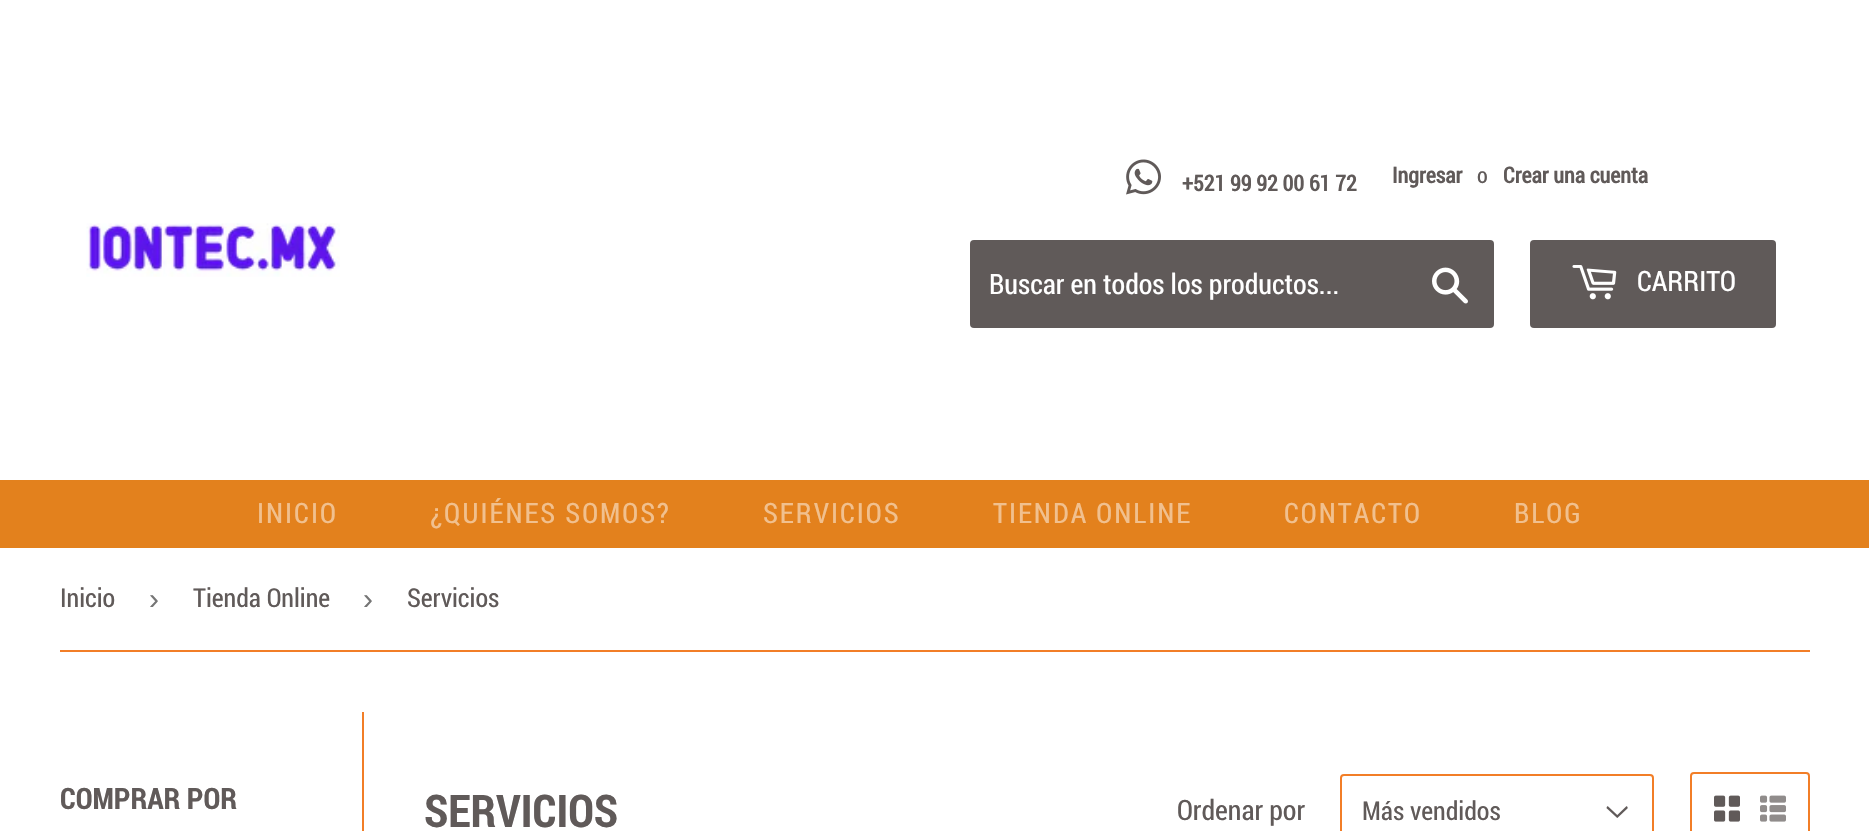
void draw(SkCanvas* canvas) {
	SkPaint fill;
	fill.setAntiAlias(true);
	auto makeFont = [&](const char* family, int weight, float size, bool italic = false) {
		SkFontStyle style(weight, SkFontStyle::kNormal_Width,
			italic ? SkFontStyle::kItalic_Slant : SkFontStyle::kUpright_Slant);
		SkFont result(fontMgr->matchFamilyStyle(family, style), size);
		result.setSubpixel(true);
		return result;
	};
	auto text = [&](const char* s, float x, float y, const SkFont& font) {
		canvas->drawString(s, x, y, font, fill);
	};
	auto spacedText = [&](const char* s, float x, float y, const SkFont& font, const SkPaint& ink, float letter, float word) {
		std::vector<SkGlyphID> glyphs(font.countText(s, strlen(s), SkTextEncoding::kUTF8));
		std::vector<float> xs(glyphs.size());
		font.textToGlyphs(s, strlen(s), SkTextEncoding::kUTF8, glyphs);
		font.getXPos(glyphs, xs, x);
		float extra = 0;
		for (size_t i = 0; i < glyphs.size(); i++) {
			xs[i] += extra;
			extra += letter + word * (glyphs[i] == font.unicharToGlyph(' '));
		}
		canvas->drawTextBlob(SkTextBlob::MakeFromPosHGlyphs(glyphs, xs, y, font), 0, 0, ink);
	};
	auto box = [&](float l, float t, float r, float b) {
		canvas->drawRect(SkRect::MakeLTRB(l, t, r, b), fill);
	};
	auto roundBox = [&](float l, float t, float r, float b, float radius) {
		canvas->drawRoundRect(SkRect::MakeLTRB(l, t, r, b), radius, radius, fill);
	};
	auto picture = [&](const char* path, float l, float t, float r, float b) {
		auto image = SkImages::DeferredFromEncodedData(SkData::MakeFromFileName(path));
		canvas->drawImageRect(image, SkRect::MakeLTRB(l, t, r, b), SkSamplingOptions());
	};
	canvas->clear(0xFFFFFFFF);
	picture("image0.png", 86, 223, 340, 277);
	picture("image1.png", 1126, 159, 1161, 195);
	fill.setColor(0xFF605A59);
	roundBox(970, 240, 1494, 328, 4);
	picture("image2.png", 1432, 267, 1468, 304);
	roundBox(1530, 240, 1776, 328, 4);
	picture("image3.png", 1572, 265, 1617, 300);
	fill.setColor(0xFFE3811D);
	box(0, 480, 1869, 548);
	fill.setColor(0xFFF27E27);
	box(60, 650, 1810, 652);
	box(362, 712, 364, 831);
	picture("image4.png", 1606, 806, 1628, 818);
	fill.setStyle(SkPaint::kStroke_Style);
	fill.setStrokeWidth(2);
	canvas->drawRoundRect(SkRect::MakeLTRB(1341, 775, 1653, 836), 3, 3, fill);
	canvas->drawRoundRect(SkRect::MakeLTRB(1691, 773, 1809, 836), 3, 3, fill);
	picture("image5.png", 1714, 795, 1740, 822);
	picture("image6.png", 1760, 795, 1786, 822);
	auto font1 = makeFont("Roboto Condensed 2", 700, 22);
	fill.setStyle(SkPaint::kFill_Style);
	fill.setColor(0xFF605A59);
	text("+521 99 92 00 61 72", 1182, 191, font1);
	text("Ingresar", 1392, 183, font1);
	auto font2 = makeFont("Roboto Condensed", 400, 22);
	text("o", 1477, 183, font2);
	text("Crear una cuenta", 1503, 183, font1);
	auto font3 = makeFont("Roboto Condensed", 400, 28);
	fill.setColor(0xFFFFFFFF);
	text("Buscar en todos los productos...", 989, 294, font3);
	text("CARRITO", 1637, 291, font3);
	fill.setColor(0xFFF1C08E);
	spacedText("INICIO", 257, 523, font3, fill, 2, 0);
	spacedText("¿QUIÉNES SOMOS?", 430, 523, font3, fill, 2, 0);
	spacedText("SERVICIOS", 763, 523, font3, fill, 2, 0);
	spacedText("TIENDA ONLINE", 993, 523, font3, fill, 2, 0);
	spacedText("CONTACTO", 1284, 523, font3, fill, 2, 0);
	spacedText("BLOG", 1514, 523, font3, fill, 2, 0);
	auto font4 = makeFont("Roboto Condensed", 400, 26);
	fill.setColor(0xFF605A59);
	text("Inicio", 60, 607, font4);
	auto font5 = makeFont("Liberation Sans", 400, 30);
	fill.setColor(0xFF767676);
	text("›", 149, 609, font5);
	fill.setColor(0xFF605A59);
	text("Tienda Online", 193, 607, font4);
	fill.setColor(0xFF767676);
	text("›", 363, 609, font5);
	fill.setColor(0xFF605A59);
	text("Servicios", 407, 607, font4);
	auto font6 = makeFont("Roboto Condensed", 700, 29.5f);
	text("COMPRAR POR", 60, 809, font6);
	auto font7 = makeFont("Roboto Condensed", 700, 45);
	text("SERVICIOS", 424, 827, font7);
	text("Ordenar por", 1177, 820, font3);
	text("Más vendidos", 1362, 820, font4);
}
